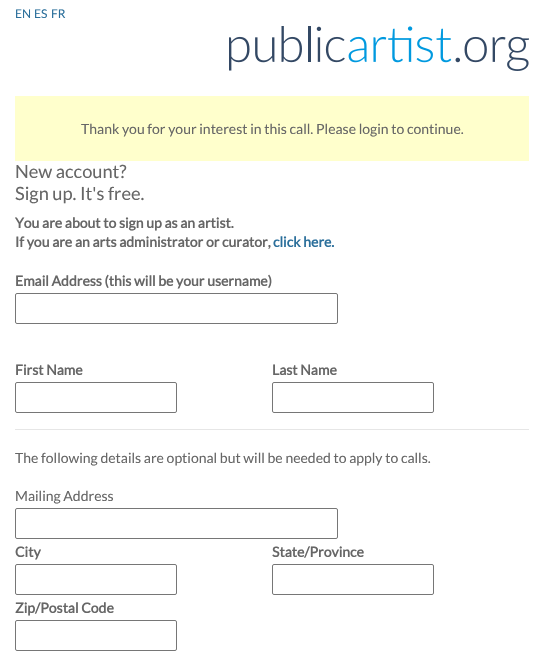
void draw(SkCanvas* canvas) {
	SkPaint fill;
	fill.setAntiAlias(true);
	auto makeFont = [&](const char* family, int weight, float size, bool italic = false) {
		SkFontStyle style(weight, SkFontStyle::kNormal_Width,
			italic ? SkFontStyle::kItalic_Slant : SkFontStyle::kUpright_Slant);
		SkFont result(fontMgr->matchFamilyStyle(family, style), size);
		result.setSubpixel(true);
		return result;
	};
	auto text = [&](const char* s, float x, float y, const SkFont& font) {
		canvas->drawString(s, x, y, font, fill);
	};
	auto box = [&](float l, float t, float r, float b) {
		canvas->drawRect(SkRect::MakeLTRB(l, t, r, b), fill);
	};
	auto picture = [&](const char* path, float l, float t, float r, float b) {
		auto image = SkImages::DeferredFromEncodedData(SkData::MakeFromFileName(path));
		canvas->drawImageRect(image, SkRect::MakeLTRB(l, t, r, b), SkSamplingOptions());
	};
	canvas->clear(0xFFFFFFFF);
	picture("image0.png", 229, 26, 529, 71);
	fill.setColor(0xFFFFFFCC);
	box(15, 96, 529, 161);
	fill.setStyle(SkPaint::kStroke_Style);
	fill.setStrokeWidth(1);
	fill.setColor(0xFF767676);
	canvas->drawRoundRect(SkRect::MakeLTRB(15.5f, 293.5f, 337.5f, 323.5f), 1.5f, 1.5f, fill);
	canvas->drawRoundRect(SkRect::MakeLTRB(15.5f, 382.5f, 176.5f, 412.5f), 1.5f, 1.5f, fill);
	canvas->drawRoundRect(SkRect::MakeLTRB(272.5f, 382.5f, 433.5f, 412.5f), 1.5f, 1.5f, fill);
	fill.setStyle(SkPaint::kFill_Style);
	fill.setColor(0xFFE6E6E6);
	box(15, 429, 529, 430);
	fill.setStyle(SkPaint::kStroke_Style);
	fill.setColor(0xFF767676);
	canvas->drawRoundRect(SkRect::MakeLTRB(15.5f, 508.5f, 337.5f, 538.5f), 1.5f, 1.5f, fill);
	canvas->drawRoundRect(SkRect::MakeLTRB(15.5f, 564.5f, 176.5f, 594.5f), 1.5f, 1.5f, fill);
	canvas->drawRoundRect(SkRect::MakeLTRB(272.5f, 564.5f, 433.5f, 594.5f), 1.5f, 1.5f, fill);
	canvas->drawRoundRect(SkRect::MakeLTRB(15.5f, 620.5f, 176.5f, 650.5f), 1.5f, 1.5f, fill);
	auto font1 = makeFont("Lato", 400, 12);
	fill.setStyle(SkPaint::kFill_Style);
	fill.setColor(0xFF2B6F9B);
	text("EN", 15, 18, font1);
	text("ES", 34, 18, font1);
	text("FR", 51, 18, font1);
	auto font2 = makeFont("Lato", 400, 14);
	fill.setColor(0xFF666666);
	text("Thank you for your interest in this call. Please login to continue.", 81, 134, font2);
	auto font3 = makeFont("Lato", 400, 18.25f);
	text("New account?", 15, 178, font3);
	text("Sign up. It's free.", 15, 200, font3);
	auto font4 = makeFont("Lato", 700, 14);
	text("You are about to sign up as an artist.", 15, 228, font4);
	text("If you are an arts administrator or curator,", 15, 247, font4);
	fill.setColor(0xFF2B6F9B);
	text("click here.", 273, 247, font4);
	fill.setColor(0xFF666666);
	text("Email Address (this will be your username)", 15, 286, font4);
	text("First Name", 15, 375, font4);
	text("Last Name", 272, 375, font4);
	text("The following details are optional but will be needed to apply to calls.", 15, 463, font2);
	text("Mailing Address", 15, 501, font2);
	text("City", 15, 557, font4);
	text("State/Province", 272, 557, font4);
	text("Zip/Postal Code", 15, 613, font4);
}
